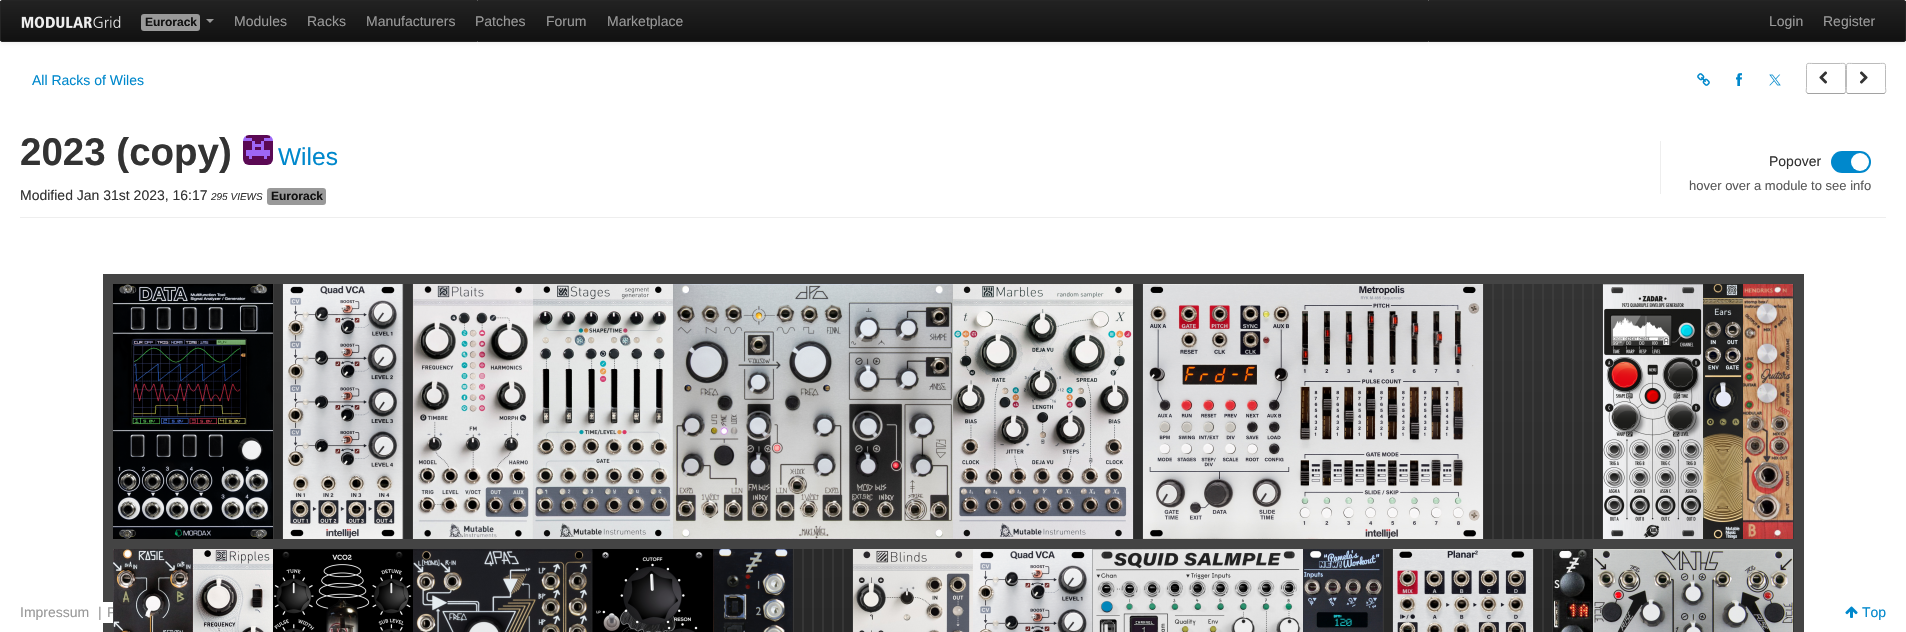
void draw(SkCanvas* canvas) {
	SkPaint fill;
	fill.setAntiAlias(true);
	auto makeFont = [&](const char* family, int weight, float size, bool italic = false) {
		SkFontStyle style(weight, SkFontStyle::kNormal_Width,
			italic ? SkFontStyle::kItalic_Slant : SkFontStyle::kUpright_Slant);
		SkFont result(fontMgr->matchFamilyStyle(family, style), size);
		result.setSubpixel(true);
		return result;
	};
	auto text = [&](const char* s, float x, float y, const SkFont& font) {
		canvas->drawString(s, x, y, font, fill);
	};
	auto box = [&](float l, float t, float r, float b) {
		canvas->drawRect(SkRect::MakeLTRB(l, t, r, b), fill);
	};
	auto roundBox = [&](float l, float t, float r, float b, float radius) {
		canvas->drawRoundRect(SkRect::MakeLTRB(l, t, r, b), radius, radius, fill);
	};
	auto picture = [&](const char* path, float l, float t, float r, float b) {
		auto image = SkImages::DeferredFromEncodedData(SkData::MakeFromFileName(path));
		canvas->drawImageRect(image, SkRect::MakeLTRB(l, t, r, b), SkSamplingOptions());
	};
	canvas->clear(0xFFFFFFFF);
	fill.setColor(0x12000000);
	fill.setMaskFilter(SkMaskFilter::MakeBlur(kNormal_SkBlurStyle, 2));
	canvas->drawRoundRect(SkRect::MakeLTRB(0, 1, 1906, 43), 2, 2, fill);
	fill.setMaskFilter(nullptr);
	canvas->save();
	canvas->clipPath(SkPathBuilder().moveTo(2, 0).lineTo(1904, 0).cubicTo(1905, 0, 1906, 1, 1906, 2).lineTo(1906, 40).cubicTo(1906, 41, 1905, 42, 1904, 42).lineTo(2, 42).cubicTo(1, 42, 0, 41, 0, 40).lineTo(0, 2).cubicTo(0, 1, 1, 0, 2, 0).close().detach(), true);
	{
		const SkColor colors[] = {0xFF222222, 0xFF111111};
		const float stops[] = {0, 1};
		const SkPoint ends[] = {{953, 1}, {953, 41}};
		fill.setShader(SkGradientShader::MakeLinear(ends, colors, stops, 2, SkTileMode::kClamp));
		fill.setAlpha(255);
	}
	box(0, 1, 1906, 41);
	canvas->restore();
	fill.setStyle(SkPaint::kStroke_Style);
	fill.setStrokeWidth(1);
	fill.setShader(nullptr);
	fill.setColor(0xFF252525);
	canvas->drawRoundRect(SkRect::MakeLTRB(0.5f, 0.5f, 1905.5f, 41.5f), 1.5f, 1.5f, fill);
	picture("image0.png", 21, 16, 121, 28);
	fill.setStyle(SkPaint::kFill_Style);
	fill.setColor(0xFF999999);
	roundBox(141, 14, 200, 31, 3);
	canvas->drawPath(SkPathBuilder().moveTo(206, 19).lineTo(214, 19).lineTo(210, 23).close().detach(), fill);
	picture("image1.png", 1697, 73, 1710, 86);
	picture("image2.png", 1736, 73, 1742, 86);
	picture("image3.png", 1769, 74, 1781, 86);
	fill.setStyle(SkPaint::kStroke_Style);
	fill.setColor(0xFFA2A2A2);
	canvas->drawPath(SkPathBuilder().moveTo(1845, 93).lineTo(1844, 93.5f).lineTo(1808, 93.5f).lineTo(1807, 93).detach(), fill);
	fill.setColor(0xFFBBBBBB);
	canvas->drawPath(SkPathBuilder().moveTo(1807, 93).cubicTo(1805.5f, 91.5f, 1806.5f, 89.5f, 1806.5f, 87.5f).lineTo(1806.5f, 69.5f).cubicTo(1806.5f, 62, 1806, 63.5f, 1814, 63.5f).lineTo(1838, 63.5f).cubicTo(1846, 63.5f, 1845.5f, 62, 1845.5f, 69.5f).lineTo(1845.5f, 87.5f).cubicTo(1845.5f, 89.5f, 1846.5f, 91.5f, 1845, 93).detach(), fill);
	picture("image4.png", 1819, 71, 1827, 84);
	fill.setColor(0xFFA2A2A2);
	canvas->drawPath(SkPathBuilder().moveTo(1885, 93).lineTo(1884, 93.5f).lineTo(1848, 93.5f).lineTo(1847, 93).detach(), fill);
	fill.setColor(0xFFBBBBBB);
	canvas->drawPath(SkPathBuilder().moveTo(1847, 93).cubicTo(1845.5f, 91.5f, 1846.5f, 89.5f, 1846.5f, 87.5f).lineTo(1846.5f, 69.5f).cubicTo(1846.5f, 62, 1846, 63.5f, 1854, 63.5f).lineTo(1878, 63.5f).cubicTo(1886, 63.5f, 1885.5f, 62, 1885.5f, 69.5f).lineTo(1885.5f, 87.5f).cubicTo(1885.5f, 89.5f, 1886.5f, 91.5f, 1885, 93).detach(), fill);
	picture("image5.png", 1860, 71, 1868, 84);
	fill.setStyle(SkPaint::kFill_Style);
	fill.setColor(0xFFEEEEEE);
	box(20, 217, 1886, 218);
	picture("image6.png", 243, 135, 273, 165);
	fill.setColor(0xFF999999);
	roundBox(267, 188, 326, 205, 3);
	fill.setColor(0xFFEEEEEE);
	box(1660, 141, 1661, 194);
	fill.setColor(0xFF0088CC);
	roundBox(1831, 151, 1871, 173, 11);
	fill.setColor(0xFFFFFFFF);
	canvas->drawCircle(1860, 162, 9, fill);
	{
		const SkColor colors[] = {0xFF333333, 0xFF111111};
		const float stops[] = {0, 1};
		const SkPoint ends[] = {{953, 284}, {954, 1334}};
		fill.setShader(SkGradientShader::MakeLinear(ends, colors, stops, 2, SkTileMode::kClamp));
		fill.setAlpha(255);
	}
	box(273, 284, 1794, 632);
	fill.setStyle(SkPaint::kStroke_Style);
	fill.setShader(nullptr);
	fill.setColor(0xFF444444);
	fill.setPathEffect(SkDashPathEffect::Make({{1, 1}}, 0));
	canvas->drawPath(SkPathBuilder().moveTo(262.5f, 283.5f).lineTo(273.5f, 283.5f).lineTo(273.5f, 539.5f).lineTo(262.5f, 539.5f).close().detach(), fill);
	fill.setPathEffect(nullptr);
	fill.setPathEffect(SkDashPathEffect::Make({{1, 1}}, 0));
	canvas->drawPath(SkPathBuilder().moveTo(272.5f, 283.5f).lineTo(283.5f, 283.5f).lineTo(283.5f, 539.5f).lineTo(272.5f, 539.5f).close().detach(), fill);
	fill.setPathEffect(nullptr);
	fill.setPathEffect(SkDashPathEffect::Make({{1, 1}}, 0));
	canvas->drawPath(SkPathBuilder().moveTo(282.5f, 283.5f).lineTo(293.5f, 283.5f).lineTo(293.5f, 539.5f).lineTo(282.5f, 539.5f).close().detach(), fill);
	fill.setPathEffect(nullptr);
	fill.setPathEffect(SkDashPathEffect::Make({{1, 1}}, 0));
	canvas->drawPath(SkPathBuilder().moveTo(292.5f, 283.5f).lineTo(303.5f, 283.5f).lineTo(303.5f, 539.5f).lineTo(292.5f, 539.5f).close().detach(), fill);
	fill.setPathEffect(nullptr);
	fill.setPathEffect(SkDashPathEffect::Make({{1, 1}}, 0));
	canvas->drawPath(SkPathBuilder().moveTo(302.5f, 283.5f).lineTo(313.5f, 283.5f).lineTo(313.5f, 539.5f).lineTo(302.5f, 539.5f).close().detach(), fill);
	fill.setPathEffect(nullptr);
	fill.setPathEffect(SkDashPathEffect::Make({{1, 1}}, 0));
	canvas->drawPath(SkPathBuilder().moveTo(312.5f, 283.5f).lineTo(323.5f, 283.5f).lineTo(323.5f, 539.5f).lineTo(312.5f, 539.5f).close().detach(), fill);
	fill.setPathEffect(nullptr);
	fill.setPathEffect(SkDashPathEffect::Make({{1, 1}}, 0));
	canvas->drawPath(SkPathBuilder().moveTo(322.5f, 283.5f).lineTo(333.5f, 283.5f).lineTo(333.5f, 539.5f).lineTo(322.5f, 539.5f).close().detach(), fill);
	fill.setPathEffect(nullptr);
	fill.setPathEffect(SkDashPathEffect::Make({{1, 1}}, 0));
	canvas->drawPath(SkPathBuilder().moveTo(332.5f, 283.5f).lineTo(343.5f, 283.5f).lineTo(343.5f, 539.5f).lineTo(332.5f, 539.5f).close().detach(), fill);
	fill.setPathEffect(nullptr);
	fill.setPathEffect(SkDashPathEffect::Make({{1, 1}}, 0));
	canvas->drawPath(SkPathBuilder().moveTo(342.5f, 283.5f).lineTo(353.5f, 283.5f).lineTo(353.5f, 539.5f).lineTo(342.5f, 539.5f).close().detach(), fill);
	fill.setPathEffect(nullptr);
	fill.setPathEffect(SkDashPathEffect::Make({{1, 1}}, 0));
	canvas->drawPath(SkPathBuilder().moveTo(352.5f, 283.5f).lineTo(363.5f, 283.5f).lineTo(363.5f, 539.5f).lineTo(352.5f, 539.5f).close().detach(), fill);
	fill.setPathEffect(nullptr);
	fill.setPathEffect(SkDashPathEffect::Make({{1, 1}}, 0));
	canvas->drawPath(SkPathBuilder().moveTo(362.5f, 283.5f).lineTo(373.5f, 283.5f).lineTo(373.5f, 539.5f).lineTo(362.5f, 539.5f).close().detach(), fill);
	fill.setPathEffect(nullptr);
	fill.setPathEffect(SkDashPathEffect::Make({{1, 1}}, 0));
	canvas->drawPath(SkPathBuilder().moveTo(372.5f, 283.5f).lineTo(383.5f, 283.5f).lineTo(383.5f, 539.5f).lineTo(372.5f, 539.5f).close().detach(), fill);
	fill.setPathEffect(nullptr);
	fill.setPathEffect(SkDashPathEffect::Make({{1, 1}}, 0));
	canvas->drawPath(SkPathBuilder().moveTo(382.5f, 283.5f).lineTo(393.5f, 283.5f).lineTo(393.5f, 539.5f).lineTo(382.5f, 539.5f).close().detach(), fill);
	fill.setPathEffect(nullptr);
	fill.setPathEffect(SkDashPathEffect::Make({{1, 1}}, 0));
	canvas->drawPath(SkPathBuilder().moveTo(392.5f, 283.5f).lineTo(403.5f, 283.5f).lineTo(403.5f, 539.5f).lineTo(392.5f, 539.5f).close().detach(), fill);
	fill.setPathEffect(nullptr);
	fill.setPathEffect(SkDashPathEffect::Make({{1, 1}}, 0));
	canvas->drawPath(SkPathBuilder().moveTo(402.5f, 283.5f).lineTo(413.5f, 283.5f).lineTo(413.5f, 539.5f).lineTo(402.5f, 539.5f).close().detach(), fill);
	fill.setPathEffect(nullptr);
	fill.setPathEffect(SkDashPathEffect::Make({{1, 1}}, 0));
	canvas->drawPath(SkPathBuilder().moveTo(412.5f, 283.5f).lineTo(423.5f, 283.5f).lineTo(423.5f, 539.5f).lineTo(412.5f, 539.5f).close().detach(), fill);
	fill.setPathEffect(nullptr);
	fill.setPathEffect(SkDashPathEffect::Make({{1, 1}}, 0));
	canvas->drawPath(SkPathBuilder().moveTo(1122.5f, 283.5f).lineTo(1133.5f, 283.5f).lineTo(1133.5f, 539.5f).lineTo(1122.5f, 539.5f).close().detach(), fill);
	fill.setPathEffect(nullptr);
	fill.setPathEffect(SkDashPathEffect::Make({{1, 1}}, 0));
	canvas->drawPath(SkPathBuilder().moveTo(1142.5f, 283.5f).lineTo(1153.5f, 283.5f).lineTo(1153.5f, 539.5f).lineTo(1142.5f, 539.5f).close().detach(), fill);
	fill.setPathEffect(nullptr);
	fill.setPathEffect(SkDashPathEffect::Make({{1, 1}}, 0));
	canvas->drawPath(SkPathBuilder().moveTo(1472.5f, 283.5f).lineTo(1483.5f, 283.5f).lineTo(1483.5f, 539.5f).lineTo(1472.5f, 539.5f).close().detach(), fill);
	fill.setPathEffect(nullptr);
	fill.setPathEffect(SkDashPathEffect::Make({{1, 1}}, 0));
	canvas->drawPath(SkPathBuilder().moveTo(1482.5f, 283.5f).lineTo(1493.5f, 283.5f).lineTo(1493.5f, 539.5f).lineTo(1482.5f, 539.5f).close().detach(), fill);
	fill.setPathEffect(nullptr);
	fill.setPathEffect(SkDashPathEffect::Make({{1, 1}}, 0));
	canvas->drawPath(SkPathBuilder().moveTo(1492.5f, 283.5f).lineTo(1503.5f, 283.5f).lineTo(1503.5f, 539.5f).lineTo(1492.5f, 539.5f).close().detach(), fill);
	fill.setPathEffect(nullptr);
	fill.setPathEffect(SkDashPathEffect::Make({{1, 1}}, 0));
	canvas->drawPath(SkPathBuilder().moveTo(1502.5f, 283.5f).lineTo(1513.5f, 283.5f).lineTo(1513.5f, 539.5f).lineTo(1502.5f, 539.5f).close().detach(), fill);
	fill.setPathEffect(nullptr);
	fill.setPathEffect(SkDashPathEffect::Make({{1, 1}}, 0));
	canvas->drawPath(SkPathBuilder().moveTo(1512.5f, 283.5f).lineTo(1523.5f, 283.5f).lineTo(1523.5f, 539.5f).lineTo(1512.5f, 539.5f).close().detach(), fill);
	fill.setPathEffect(nullptr);
	fill.setPathEffect(SkDashPathEffect::Make({{1, 1}}, 0));
	canvas->drawPath(SkPathBuilder().moveTo(1522.5f, 283.5f).lineTo(1533.5f, 283.5f).lineTo(1533.5f, 539.5f).lineTo(1522.5f, 539.5f).close().detach(), fill);
	fill.setPathEffect(nullptr);
	fill.setPathEffect(SkDashPathEffect::Make({{1, 1}}, 0));
	canvas->drawPath(SkPathBuilder().moveTo(1532.5f, 283.5f).lineTo(1543.5f, 283.5f).lineTo(1543.5f, 539.5f).lineTo(1532.5f, 539.5f).close().detach(), fill);
	fill.setPathEffect(nullptr);
	fill.setPathEffect(SkDashPathEffect::Make({{1, 1}}, 0));
	canvas->drawPath(SkPathBuilder().moveTo(1542.5f, 283.5f).lineTo(1553.5f, 283.5f).lineTo(1553.5f, 539.5f).lineTo(1542.5f, 539.5f).close().detach(), fill);
	fill.setPathEffect(nullptr);
	fill.setPathEffect(SkDashPathEffect::Make({{1, 1}}, 0));
	canvas->drawPath(SkPathBuilder().moveTo(1552.5f, 283.5f).lineTo(1563.5f, 283.5f).lineTo(1563.5f, 539.5f).lineTo(1552.5f, 539.5f).close().detach(), fill);
	fill.setPathEffect(nullptr);
	fill.setPathEffect(SkDashPathEffect::Make({{1, 1}}, 0));
	canvas->drawPath(SkPathBuilder().moveTo(1562.5f, 283.5f).lineTo(1573.5f, 283.5f).lineTo(1573.5f, 539.5f).lineTo(1562.5f, 539.5f).close().detach(), fill);
	fill.setPathEffect(nullptr);
	fill.setPathEffect(SkDashPathEffect::Make({{1, 1}}, 0));
	canvas->drawPath(SkPathBuilder().moveTo(1572.5f, 283.5f).lineTo(1583.5f, 283.5f).lineTo(1583.5f, 539.5f).lineTo(1572.5f, 539.5f).close().detach(), fill);
	fill.setPathEffect(nullptr);
	fill.setPathEffect(SkDashPathEffect::Make({{1, 1}}, 0));
	canvas->drawPath(SkPathBuilder().moveTo(1582.5f, 283.5f).lineTo(1593.5f, 283.5f).lineTo(1593.5f, 539.5f).lineTo(1582.5f, 539.5f).close().detach(), fill);
	fill.setPathEffect(nullptr);
	fill.setPathEffect(SkDashPathEffect::Make({{1, 1}}, 0));
	canvas->drawPath(SkPathBuilder().moveTo(1592.5f, 283.5f).lineTo(1603.5f, 283.5f).lineTo(1603.5f, 539.5f).lineTo(1592.5f, 539.5f).close().detach(), fill);
	fill.setPathEffect(nullptr);
	fill.setPathEffect(SkDashPathEffect::Make({{1, 1}}, 0));
	canvas->drawPath(SkPathBuilder().moveTo(1602.5f, 283.5f).lineTo(1613.5f, 283.5f).lineTo(1613.5f, 539.5f).lineTo(1602.5f, 539.5f).close().detach(), fill);
	fill.setPathEffect(nullptr);
	fill.setPathEffect(SkDashPathEffect::Make({{1, 1}}, 0));
	canvas->drawPath(SkPathBuilder().moveTo(1612.5f, 283.5f).lineTo(1623.5f, 283.5f).lineTo(1623.5f, 539.5f).lineTo(1612.5f, 539.5f).close().detach(), fill);
	fill.setPathEffect(nullptr);
	fill.setPathEffect(SkDashPathEffect::Make({{1, 1}}, 0));
	canvas->drawPath(SkPathBuilder().moveTo(1622.5f, 283.5f).lineTo(1633.5f, 283.5f).lineTo(1633.5f, 539.5f).lineTo(1622.5f, 539.5f).close().detach(), fill);
	fill.setPathEffect(nullptr);
	fill.setPathEffect(SkDashPathEffect::Make({{1, 1}}, 0));
	canvas->drawPath(SkPathBuilder().moveTo(1632.5f, 283.5f).lineTo(1643.5f, 283.5f).lineTo(1643.5f, 539.5f).lineTo(1632.5f, 539.5f).close().detach(), fill);
	fill.setPathEffect(nullptr);
	fill.setPathEffect(SkDashPathEffect::Make({{1, 1}}, 0));
	canvas->drawPath(SkPathBuilder().moveTo(1642.5f, 283.5f).lineTo(1653.5f, 283.5f).lineTo(1653.5f, 539.5f).lineTo(1642.5f, 539.5f).close().detach(), fill);
	fill.setPathEffect(nullptr);
	fill.setPathEffect(SkDashPathEffect::Make({{1, 1}}, 0));
	canvas->drawPath(SkPathBuilder().moveTo(1652.5f, 283.5f).lineTo(1663.5f, 283.5f).lineTo(1663.5f, 539.5f).lineTo(1652.5f, 539.5f).close().detach(), fill);
	fill.setPathEffect(nullptr);
	fill.setPathEffect(SkDashPathEffect::Make({{1, 1}}, 0));
	canvas->drawPath(SkPathBuilder().moveTo(1662.5f, 283.5f).lineTo(1673.5f, 283.5f).lineTo(1673.5f, 539.5f).lineTo(1662.5f, 539.5f).close().detach(), fill);
	fill.setPathEffect(nullptr);
	fill.setPathEffect(SkDashPathEffect::Make({{1, 1}}, 0));
	canvas->drawPath(SkPathBuilder().moveTo(1672.5f, 283.5f).lineTo(1683.5f, 283.5f).lineTo(1683.5f, 539.5f).lineTo(1672.5f, 539.5f).close().detach(), fill);
	fill.setPathEffect(nullptr);
	fill.setPathEffect(SkDashPathEffect::Make({{1, 1}}, 0));
	canvas->drawPath(SkPathBuilder().moveTo(1682.5f, 283.5f).lineTo(1693.5f, 283.5f).lineTo(1693.5f, 539.5f).lineTo(1682.5f, 539.5f).close().detach(), fill);
	fill.setPathEffect(nullptr);
	fill.setPathEffect(SkDashPathEffect::Make({{1, 1}}, 0));
	canvas->drawPath(SkPathBuilder().moveTo(1692.5f, 283.5f).lineTo(1703.5f, 283.5f).lineTo(1703.5f, 539.5f).lineTo(1692.5f, 539.5f).close().detach(), fill);
	fill.setPathEffect(nullptr);
	fill.setPathEffect(SkDashPathEffect::Make({{1, 1}}, 0));
	canvas->drawPath(SkPathBuilder().moveTo(1702.5f, 283.5f).lineTo(1713.5f, 283.5f).lineTo(1713.5f, 539.5f).lineTo(1702.5f, 539.5f).close().detach(), fill);
	fill.setPathEffect(nullptr);
	fill.setPathEffect(SkDashPathEffect::Make({{1, 1}}, 0));
	canvas->drawPath(SkPathBuilder().moveTo(1782.5f, 283.5f).lineTo(1793.5f, 283.5f).lineTo(1793.5f, 539.5f).lineTo(1782.5f, 539.5f).close().detach(), fill);
	fill.setPathEffect(nullptr);
	fill.setPathEffect(SkDashPathEffect::Make({{1, 1}}, 0));
	canvas->drawPath(SkPathBuilder().moveTo(782.5f, 548.5f).lineTo(793.5f, 548.5f).lineTo(793.5f, 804.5f).lineTo(782.5f, 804.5f).close().detach(), fill);
	fill.setPathEffect(nullptr);
	fill.setPathEffect(SkDashPathEffect::Make({{1, 1}}, 0));
	canvas->drawPath(SkPathBuilder().moveTo(792.5f, 548.5f).lineTo(803.5f, 548.5f).lineTo(803.5f, 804.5f).lineTo(792.5f, 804.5f).close().detach(), fill);
	fill.setPathEffect(nullptr);
	fill.setPathEffect(SkDashPathEffect::Make({{1, 1}}, 0));
	canvas->drawPath(SkPathBuilder().moveTo(802.5f, 548.5f).lineTo(813.5f, 548.5f).lineTo(813.5f, 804.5f).lineTo(802.5f, 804.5f).close().detach(), fill);
	fill.setPathEffect(nullptr);
	fill.setPathEffect(SkDashPathEffect::Make({{1, 1}}, 0));
	canvas->drawPath(SkPathBuilder().moveTo(812.5f, 548.5f).lineTo(823.5f, 548.5f).lineTo(823.5f, 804.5f).lineTo(812.5f, 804.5f).close().detach(), fill);
	fill.setPathEffect(nullptr);
	fill.setPathEffect(SkDashPathEffect::Make({{1, 1}}, 0));
	canvas->drawPath(SkPathBuilder().moveTo(822.5f, 548.5f).lineTo(833.5f, 548.5f).lineTo(833.5f, 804.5f).lineTo(822.5f, 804.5f).close().detach(), fill);
	fill.setPathEffect(nullptr);
	fill.setPathEffect(SkDashPathEffect::Make({{1, 1}}, 0));
	canvas->drawPath(SkPathBuilder().moveTo(832.5f, 548.5f).lineTo(843.5f, 548.5f).lineTo(843.5f, 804.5f).lineTo(832.5f, 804.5f).close().detach(), fill);
	fill.setPathEffect(nullptr);
	fill.setPathEffect(SkDashPathEffect::Make({{1, 1}}, 0));
	canvas->drawPath(SkPathBuilder().moveTo(842.5f, 548.5f).lineTo(853.5f, 548.5f).lineTo(853.5f, 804.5f).lineTo(842.5f, 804.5f).close().detach(), fill);
	fill.setPathEffect(nullptr);
	fill.setPathEffect(SkDashPathEffect::Make({{1, 1}}, 0));
	canvas->drawPath(SkPathBuilder().moveTo(852.5f, 548.5f).lineTo(863.5f, 548.5f).lineTo(863.5f, 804.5f).lineTo(852.5f, 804.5f).close().detach(), fill);
	fill.setPathEffect(nullptr);
	fill.setPathEffect(SkDashPathEffect::Make({{1, 1}}, 0));
	canvas->drawPath(SkPathBuilder().moveTo(962.5f, 548.5f).lineTo(973.5f, 548.5f).lineTo(973.5f, 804.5f).lineTo(962.5f, 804.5f).close().detach(), fill);
	fill.setPathEffect(nullptr);
	fill.setPathEffect(SkDashPathEffect::Make({{1, 1}}, 0));
	canvas->drawPath(SkPathBuilder().moveTo(972.5f, 548.5f).lineTo(983.5f, 548.5f).lineTo(983.5f, 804.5f).lineTo(972.5f, 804.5f).close().detach(), fill);
	fill.setPathEffect(nullptr);
	fill.setPathEffect(SkDashPathEffect::Make({{1, 1}}, 0));
	canvas->drawPath(SkPathBuilder().moveTo(982.5f, 548.5f).lineTo(993.5f, 548.5f).lineTo(993.5f, 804.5f).lineTo(982.5f, 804.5f).close().detach(), fill);
	fill.setPathEffect(nullptr);
	fill.setPathEffect(SkDashPathEffect::Make({{1, 1}}, 0));
	canvas->drawPath(SkPathBuilder().moveTo(992.5f, 548.5f).lineTo(1003.5f, 548.5f).lineTo(1003.5f, 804.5f).lineTo(992.5f, 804.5f).close().detach(), fill);
	fill.setPathEffect(nullptr);
	fill.setPathEffect(SkDashPathEffect::Make({{1, 1}}, 0));
	canvas->drawPath(SkPathBuilder().moveTo(1002.5f, 548.5f).lineTo(1013.5f, 548.5f).lineTo(1013.5f, 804.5f).lineTo(1002.5f, 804.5f).close().detach(), fill);
	fill.setPathEffect(nullptr);
	fill.setPathEffect(SkDashPathEffect::Make({{1, 1}}, 0));
	canvas->drawPath(SkPathBuilder().moveTo(1012.5f, 548.5f).lineTo(1023.5f, 548.5f).lineTo(1023.5f, 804.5f).lineTo(1012.5f, 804.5f).close().detach(), fill);
	fill.setPathEffect(nullptr);
	fill.setPathEffect(SkDashPathEffect::Make({{1, 1}}, 0));
	canvas->drawPath(SkPathBuilder().moveTo(1022.5f, 548.5f).lineTo(1033.5f, 548.5f).lineTo(1033.5f, 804.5f).lineTo(1022.5f, 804.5f).close().detach(), fill);
	fill.setPathEffect(nullptr);
	fill.setPathEffect(SkDashPathEffect::Make({{1, 1}}, 0));
	canvas->drawPath(SkPathBuilder().moveTo(1032.5f, 548.5f).lineTo(1043.5f, 548.5f).lineTo(1043.5f, 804.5f).lineTo(1032.5f, 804.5f).close().detach(), fill);
	fill.setPathEffect(nullptr);
	fill.setPathEffect(SkDashPathEffect::Make({{1, 1}}, 0));
	canvas->drawPath(SkPathBuilder().moveTo(1042.5f, 548.5f).lineTo(1053.5f, 548.5f).lineTo(1053.5f, 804.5f).lineTo(1042.5f, 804.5f).close().detach(), fill);
	fill.setPathEffect(nullptr);
	fill.setPathEffect(SkDashPathEffect::Make({{1, 1}}, 0));
	canvas->drawPath(SkPathBuilder().moveTo(1052.5f, 548.5f).lineTo(1063.5f, 548.5f).lineTo(1063.5f, 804.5f).lineTo(1052.5f, 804.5f).close().detach(), fill);
	fill.setPathEffect(nullptr);
	fill.setPathEffect(SkDashPathEffect::Make({{1, 1}}, 0));
	canvas->drawPath(SkPathBuilder().moveTo(1062.5f, 548.5f).lineTo(1073.5f, 548.5f).lineTo(1073.5f, 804.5f).lineTo(1062.5f, 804.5f).close().detach(), fill);
	fill.setPathEffect(nullptr);
	fill.setPathEffect(SkDashPathEffect::Make({{1, 1}}, 0));
	canvas->drawPath(SkPathBuilder().moveTo(1072.5f, 548.5f).lineTo(1083.5f, 548.5f).lineTo(1083.5f, 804.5f).lineTo(1072.5f, 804.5f).close().detach(), fill);
	fill.setPathEffect(nullptr);
	fill.setPathEffect(SkDashPathEffect::Make({{1, 1}}, 0));
	canvas->drawPath(SkPathBuilder().moveTo(1082.5f, 548.5f).lineTo(1093.5f, 548.5f).lineTo(1093.5f, 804.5f).lineTo(1082.5f, 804.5f).close().detach(), fill);
	fill.setPathEffect(nullptr);
	fill.setPathEffect(SkDashPathEffect::Make({{1, 1}}, 0));
	canvas->drawPath(SkPathBuilder().moveTo(1092.5f, 548.5f).lineTo(1103.5f, 548.5f).lineTo(1103.5f, 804.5f).lineTo(1092.5f, 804.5f).close().detach(), fill);
	fill.setPathEffect(nullptr);
	fill.setPathEffect(SkDashPathEffect::Make({{1, 1}}, 0));
	canvas->drawPath(SkPathBuilder().moveTo(1102.5f, 548.5f).lineTo(1113.5f, 548.5f).lineTo(1113.5f, 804.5f).lineTo(1102.5f, 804.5f).close().detach(), fill);
	fill.setPathEffect(nullptr);
	fill.setPathEffect(SkDashPathEffect::Make({{1, 1}}, 0));
	canvas->drawPath(SkPathBuilder().moveTo(1112.5f, 548.5f).lineTo(1123.5f, 548.5f).lineTo(1123.5f, 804.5f).lineTo(1112.5f, 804.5f).close().detach(), fill);
	fill.setPathEffect(nullptr);
	fill.setPathEffect(SkDashPathEffect::Make({{1, 1}}, 0));
	canvas->drawPath(SkPathBuilder().moveTo(1122.5f, 548.5f).lineTo(1133.5f, 548.5f).lineTo(1133.5f, 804.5f).lineTo(1122.5f, 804.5f).close().detach(), fill);
	fill.setPathEffect(nullptr);
	fill.setPathEffect(SkDashPathEffect::Make({{1, 1}}, 0));
	canvas->drawPath(SkPathBuilder().moveTo(1132.5f, 548.5f).lineTo(1143.5f, 548.5f).lineTo(1143.5f, 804.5f).lineTo(1132.5f, 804.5f).close().detach(), fill);
	fill.setPathEffect(nullptr);
	fill.setPathEffect(SkDashPathEffect::Make({{1, 1}}, 0));
	canvas->drawPath(SkPathBuilder().moveTo(1142.5f, 548.5f).lineTo(1153.5f, 548.5f).lineTo(1153.5f, 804.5f).lineTo(1142.5f, 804.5f).close().detach(), fill);
	fill.setPathEffect(nullptr);
	fill.setPathEffect(SkDashPathEffect::Make({{1, 1}}, 0));
	canvas->drawPath(SkPathBuilder().moveTo(1152.5f, 548.5f).lineTo(1163.5f, 548.5f).lineTo(1163.5f, 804.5f).lineTo(1152.5f, 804.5f).close().detach(), fill);
	fill.setPathEffect(nullptr);
	fill.setPathEffect(SkDashPathEffect::Make({{1, 1}}, 0));
	canvas->drawPath(SkPathBuilder().moveTo(1162.5f, 548.5f).lineTo(1173.5f, 548.5f).lineTo(1173.5f, 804.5f).lineTo(1162.5f, 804.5f).close().detach(), fill);
	fill.setPathEffect(nullptr);
	fill.setPathEffect(SkDashPathEffect::Make({{1, 1}}, 0));
	canvas->drawPath(SkPathBuilder().moveTo(1172.5f, 548.5f).lineTo(1183.5f, 548.5f).lineTo(1183.5f, 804.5f).lineTo(1172.5f, 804.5f).close().detach(), fill);
	fill.setPathEffect(nullptr);
	fill.setPathEffect(SkDashPathEffect::Make({{1, 1}}, 0));
	canvas->drawPath(SkPathBuilder().moveTo(1182.5f, 548.5f).lineTo(1193.5f, 548.5f).lineTo(1193.5f, 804.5f).lineTo(1182.5f, 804.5f).close().detach(), fill);
	fill.setPathEffect(nullptr);
	fill.setPathEffect(SkDashPathEffect::Make({{1, 1}}, 0));
	canvas->drawPath(SkPathBuilder().moveTo(1192.5f, 548.5f).lineTo(1203.5f, 548.5f).lineTo(1203.5f, 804.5f).lineTo(1192.5f, 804.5f).close().detach(), fill);
	fill.setPathEffect(nullptr);
	fill.setPathEffect(SkDashPathEffect::Make({{1, 1}}, 0));
	canvas->drawPath(SkPathBuilder().moveTo(1202.5f, 548.5f).lineTo(1213.5f, 548.5f).lineTo(1213.5f, 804.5f).lineTo(1202.5f, 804.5f).close().detach(), fill);
	fill.setPathEffect(nullptr);
	fill.setPathEffect(SkDashPathEffect::Make({{1, 1}}, 0));
	canvas->drawPath(SkPathBuilder().moveTo(1212.5f, 548.5f).lineTo(1223.5f, 548.5f).lineTo(1223.5f, 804.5f).lineTo(1212.5f, 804.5f).close().detach(), fill);
	fill.setPathEffect(nullptr);
	fill.setPathEffect(SkDashPathEffect::Make({{1, 1}}, 0));
	canvas->drawPath(SkPathBuilder().moveTo(1222.5f, 548.5f).lineTo(1233.5f, 548.5f).lineTo(1233.5f, 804.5f).lineTo(1222.5f, 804.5f).close().detach(), fill);
	fill.setPathEffect(nullptr);
	fill.setPathEffect(SkDashPathEffect::Make({{1, 1}}, 0));
	canvas->drawPath(SkPathBuilder().moveTo(1232.5f, 548.5f).lineTo(1243.5f, 548.5f).lineTo(1243.5f, 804.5f).lineTo(1232.5f, 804.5f).close().detach(), fill);
	fill.setPathEffect(nullptr);
	fill.setPathEffect(SkDashPathEffect::Make({{1, 1}}, 0));
	canvas->drawPath(SkPathBuilder().moveTo(1242.5f, 548.5f).lineTo(1253.5f, 548.5f).lineTo(1253.5f, 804.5f).lineTo(1242.5f, 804.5f).close().detach(), fill);
	fill.setPathEffect(nullptr);
	fill.setPathEffect(SkDashPathEffect::Make({{1, 1}}, 0));
	canvas->drawPath(SkPathBuilder().moveTo(1252.5f, 548.5f).lineTo(1263.5f, 548.5f).lineTo(1263.5f, 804.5f).lineTo(1252.5f, 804.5f).close().detach(), fill);
	fill.setPathEffect(nullptr);
	fill.setPathEffect(SkDashPathEffect::Make({{1, 1}}, 0));
	canvas->drawPath(SkPathBuilder().moveTo(1262.5f, 548.5f).lineTo(1273.5f, 548.5f).lineTo(1273.5f, 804.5f).lineTo(1262.5f, 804.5f).close().detach(), fill);
	fill.setPathEffect(nullptr);
	fill.setPathEffect(SkDashPathEffect::Make({{1, 1}}, 0));
	canvas->drawPath(SkPathBuilder().moveTo(1272.5f, 548.5f).lineTo(1283.5f, 548.5f).lineTo(1283.5f, 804.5f).lineTo(1272.5f, 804.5f).close().detach(), fill);
	fill.setPathEffect(nullptr);
	fill.setPathEffect(SkDashPathEffect::Make({{1, 1}}, 0));
	canvas->drawPath(SkPathBuilder().moveTo(1282.5f, 548.5f).lineTo(1293.5f, 548.5f).lineTo(1293.5f, 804.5f).lineTo(1282.5f, 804.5f).close().detach(), fill);
	fill.setPathEffect(nullptr);
	fill.setPathEffect(SkDashPathEffect::Make({{1, 1}}, 0));
	canvas->drawPath(SkPathBuilder().moveTo(1292.5f, 548.5f).lineTo(1303.5f, 548.5f).lineTo(1303.5f, 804.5f).lineTo(1292.5f, 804.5f).close().detach(), fill);
	fill.setPathEffect(nullptr);
	fill.setPathEffect(SkDashPathEffect::Make({{1, 1}}, 0));
	canvas->drawPath(SkPathBuilder().moveTo(1302.5f, 548.5f).lineTo(1313.5f, 548.5f).lineTo(1313.5f, 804.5f).lineTo(1302.5f, 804.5f).close().detach(), fill);
	fill.setPathEffect(nullptr);
	fill.setPathEffect(SkDashPathEffect::Make({{1, 1}}, 0));
	canvas->drawPath(SkPathBuilder().moveTo(1372.5f, 548.5f).lineTo(1383.5f, 548.5f).lineTo(1383.5f, 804.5f).lineTo(1372.5f, 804.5f).close().detach(), fill);
	fill.setPathEffect(nullptr);
	fill.setPathEffect(SkDashPathEffect::Make({{1, 1}}, 0));
	canvas->drawPath(SkPathBuilder().moveTo(1392.5f, 548.5f).lineTo(1403.5f, 548.5f).lineTo(1403.5f, 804.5f).lineTo(1392.5f, 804.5f).close().detach(), fill);
	fill.setPathEffect(nullptr);
	fill.setPathEffect(SkDashPathEffect::Make({{1, 1}}, 0));
	canvas->drawPath(SkPathBuilder().moveTo(1522.5f, 548.5f).lineTo(1533.5f, 548.5f).lineTo(1533.5f, 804.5f).lineTo(1522.5f, 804.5f).close().detach(), fill);
	fill.setPathEffect(nullptr);
	fill.setPathEffect(SkDashPathEffect::Make({{1, 1}}, 0));
	canvas->drawPath(SkPathBuilder().moveTo(1532.5f, 548.5f).lineTo(1543.5f, 548.5f).lineTo(1543.5f, 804.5f).lineTo(1532.5f, 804.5f).close().detach(), fill);
	fill.setPathEffect(nullptr);
	fill.setPathEffect(SkDashPathEffect::Make({{1, 1}}, 0));
	canvas->drawPath(SkPathBuilder().moveTo(1542.5f, 548.5f).lineTo(1553.5f, 548.5f).lineTo(1553.5f, 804.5f).lineTo(1542.5f, 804.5f).close().detach(), fill);
	fill.setPathEffect(nullptr);
	fill.setPathEffect(SkDashPathEffect::Make({{1, 1}}, 0));
	canvas->drawPath(SkPathBuilder().moveTo(1552.5f, 548.5f).lineTo(1563.5f, 548.5f).lineTo(1563.5f, 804.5f).lineTo(1552.5f, 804.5f).close().detach(), fill);
	fill.setPathEffect(nullptr);
	fill.setPathEffect(SkDashPathEffect::Make({{1, 1}}, 0));
	canvas->drawPath(SkPathBuilder().moveTo(1782.5f, 548.5f).lineTo(1793.5f, 548.5f).lineTo(1793.5f, 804.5f).lineTo(1782.5f, 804.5f).close().detach(), fill);
	fill.setPathEffect(nullptr);
	fill.setStrokeWidth(10);
	canvas->drawRect(SkRect::MakeLTRB(108, 279, 1799, 544), fill);
	canvas->drawRect(SkRect::MakeLTRB(108, 544, 1799, 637), fill);
	picture("image7.png", 113, 284, 273, 539);
	picture("image8.png", 283, 284, 403, 539);
	picture("image9.png", 413, 284, 533, 539);
	picture("image10.png", 533, 284, 673, 539);
	picture("image11.png", 673, 284, 953, 539);
	picture("image12.png", 953, 284, 1133, 539);
	picture("image13.png", 1143, 284, 1483, 539);
	picture("image14.png", 1603, 284, 1703, 539);
	picture("image15.png", 1703, 284, 1743, 539);
	picture("image16.png", 1743, 284, 1793, 539);
	picture("image18.png", 193, 549, 273, 632);
	picture("image19.png", 273, 549, 413, 632);
	picture("image20.png", 413, 549, 593, 632);
	picture("image21.png", 593, 549, 713, 632);
	picture("image22.png", 713, 549, 793, 632);
	picture("image23.png", 853, 549, 973, 632);
	picture("image24.png", 973, 549, 1093, 632);
	picture("image25.png", 1093, 549, 1303, 632);
	picture("image26.png", 1303, 549, 1383, 632);
	picture("image27.png", 1393, 549, 1533, 632);
	picture("image28.png", 1553, 549, 1593, 632);
	picture("image29.png", 1593, 549, 1793, 632);
	fill.setStyle(SkPaint::kFill_Style);
	fill.setColor(0xFFFFFFFF);
	box(103, 602, 113, 623);
	picture("image30.png", 1845, 606, 1858, 618);
	auto font1 = makeFont("Liberation Sans", 700, 12);
	fill.setColor(0xFF111111);
	text("Eurorack", 145, 26, font1);
	auto font2 = makeFont("Liberation Sans", 400, 14);
	fill.setColor(0xFF999999);
	text("Modules", 234, 26, font2);
	text("Racks", 307, 26, font2);
	text("Manufacturers", 366, 26, font2);
	text("Patches", 475, 26, font2);
	text("Forum", 546, 26, font2);
	text("Marketplace", 607, 26, font2);
	text("Login", 1769, 26, font2);
	text("Register", 1823, 26, font2);
	fill.setColor(0xFF0088CC);
	text("All Racks of Wiles", 32, 85, font2);
	auto font3 = makeFont("Liberation Sans", 700, 38.5f);
	fill.setColor(0xFF333333);
	text("2023 (copy)", 20, 165, font3);
	auto font4 = makeFont("Liberation Sans", 400, 24.5f);
	fill.setColor(0xFF0088CC);
	text("Wiles", 278, 165, font4);
	fill.setColor(0xFF333333);
	text("Modified Jan 31st 2023, 16:17", 20, 200, font2);
	auto font5 = makeFont("Liberation Sans", 400, 10, true);
	text("295 VIEWS", 211, 200, font5);
	fill.setColor(0xFF111111);
	text("Eurorack", 271, 200, font1);
	fill.setColor(0xFF333333);
	text("Popover", 1769, 166, font2);
	auto font6 = makeFont("Liberation Sans", 400, 13);
	fill.setColor(0xFF595959);
	text("hover over a module to see info", 1689, 190, font6);
	fill.setColor(0xFF999999);
	text("Impressum", 20, 617, font2);
	text("|", 98, 617, font2);
	text("P", 107, 617, font2);
	picture("image17.png", 113, 549, 193, 632);
	fill.setColor(0xFF0088CC);
	text("Top", 1862, 617, font2);
}
